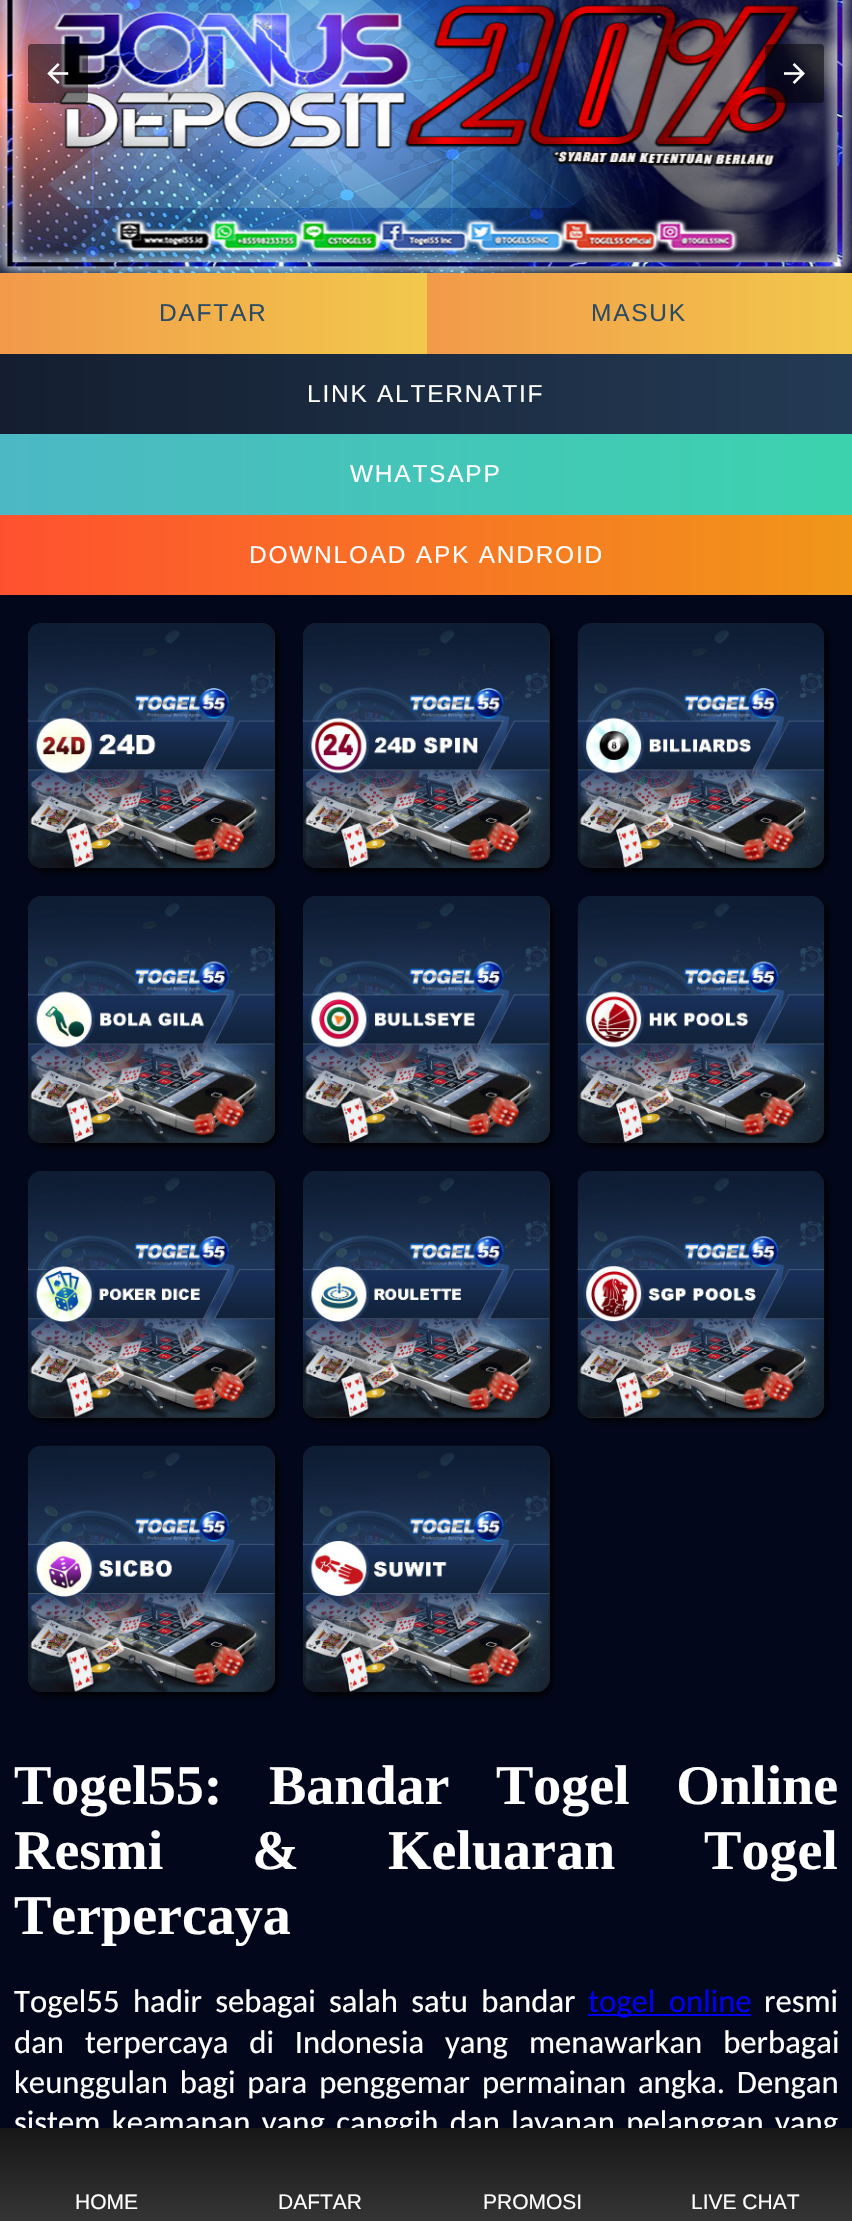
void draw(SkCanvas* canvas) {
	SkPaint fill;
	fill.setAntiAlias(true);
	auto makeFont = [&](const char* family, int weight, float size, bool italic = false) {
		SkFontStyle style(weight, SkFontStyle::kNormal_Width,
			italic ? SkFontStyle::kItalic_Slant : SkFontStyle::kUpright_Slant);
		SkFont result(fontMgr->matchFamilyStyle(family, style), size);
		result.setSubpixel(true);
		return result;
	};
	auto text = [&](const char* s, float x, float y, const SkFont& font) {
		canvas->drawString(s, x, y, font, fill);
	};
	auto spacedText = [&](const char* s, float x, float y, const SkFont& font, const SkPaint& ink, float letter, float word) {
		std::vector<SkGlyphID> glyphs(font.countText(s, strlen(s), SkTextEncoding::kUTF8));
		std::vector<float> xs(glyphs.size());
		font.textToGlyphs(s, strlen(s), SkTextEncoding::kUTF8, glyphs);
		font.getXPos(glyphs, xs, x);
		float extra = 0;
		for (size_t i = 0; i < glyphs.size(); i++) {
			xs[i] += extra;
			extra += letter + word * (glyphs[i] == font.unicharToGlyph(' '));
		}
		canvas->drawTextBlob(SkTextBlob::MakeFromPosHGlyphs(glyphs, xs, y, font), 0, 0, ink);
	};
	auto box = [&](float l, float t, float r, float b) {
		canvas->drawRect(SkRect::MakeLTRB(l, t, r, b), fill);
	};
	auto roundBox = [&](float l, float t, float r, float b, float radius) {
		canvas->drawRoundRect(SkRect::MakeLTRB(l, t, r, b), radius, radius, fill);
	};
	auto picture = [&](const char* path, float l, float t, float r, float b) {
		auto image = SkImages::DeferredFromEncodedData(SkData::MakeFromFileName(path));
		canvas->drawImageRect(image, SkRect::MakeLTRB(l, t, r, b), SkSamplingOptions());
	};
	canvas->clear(0xFF02071C);
	picture("image0.png", 0, 0, 852, 273);
	fill.setColor(0x80000000);
	roundBox(28, 44, 88, 103, 4);
	picture("image1.png", 47, 63, 69, 84);
	roundBox(765, 44, 824, 103, 4);
	picture("image2.png", 784, 63, 805, 84);
	{
		const SkColor colors[] = {0xFFF2994A, 0xFFF2C94C, 0xFFF2994A};
		const float stops[] = {0, 0.51f, 1};
		const SkPoint ends[] = {{0, 313}, {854, 313}};
		fill.setShader(SkGradientShader::MakeLinear(ends, colors, stops, 3, SkTileMode::kClamp));
		fill.setAlpha(255);
	}
	box(0, 273, 427, 354);
	{
		const SkColor colors[] = {0xFFF2994A, 0xFFF2C94C, 0xFFF2994A};
		const float stops[] = {0, 0.51f, 1};
		const SkPoint ends[] = {{427, 313}, {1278, 313}};
		fill.setShader(SkGradientShader::MakeLinear(ends, colors, stops, 3, SkTileMode::kClamp));
		fill.setAlpha(255);
	}
	box(427, 273, 852, 354);
	{
		const SkColor colors[] = {0xFF141E30, 0xFF243B55, 0xFF141E30};
		const float stops[] = {0, 0.51f, 1};
		const SkPoint ends[] = {{0, 394}, {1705, 394}};
		fill.setShader(SkGradientShader::MakeLinear(ends, colors, stops, 3, SkTileMode::kClamp));
		fill.setAlpha(255);
	}
	box(0, 354, 852, 434);
	{
		const SkColor colors[] = {0xFF4CB8C4, 0xFF3CD3AD, 0xFF4CB8C4};
		const float stops[] = {0, 0.51f, 1};
		const SkPoint ends[] = {{0, 474}, {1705, 474}};
		fill.setShader(SkGradientShader::MakeLinear(ends, colors, stops, 3, SkTileMode::kClamp));
		fill.setAlpha(255);
	}
	box(0, 434, 852, 515);
	{
		const SkColor colors[] = {0xFFFF512F, 0xFFF09819, 0xFFFF512F};
		const float stops[] = {0, 0.51f, 1};
		const SkPoint ends[] = {{0, 555}, {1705, 555}};
		fill.setShader(SkGradientShader::MakeLinear(ends, colors, stops, 3, SkTileMode::kClamp));
		fill.setAlpha(255);
	}
	box(0, 515, 852, 595);
	fill.setShader(nullptr);
	fill.setColor(0xFF000000);
	fill.setMaskFilter(SkMaskFilter::MakeBlur(kNormal_SkBlurStyle, 4.5f));
	canvas->drawRoundRect(SkRect::MakeLTRB(32, 627, 278, 872), 14, 14, fill);
	fill.setMaskFilter(nullptr);
	fill.setColor(0xFF252525);
	roundBox(28, 623, 275, 868, 14);
	picture("image3.png", 28, 623, 275, 868);
	fill.setColor(0xFF000000);
	fill.setMaskFilter(SkMaskFilter::MakeBlur(kNormal_SkBlurStyle, 4.5f));
	canvas->drawRoundRect(SkRect::MakeLTRB(306, 627, 553, 872), 14, 14, fill);
	fill.setMaskFilter(nullptr);
	fill.setColor(0xFF252525);
	roundBox(303, 623, 550, 868, 14);
	picture("image4.png", 302, 623, 550, 868);
	fill.setColor(0xFF000000);
	fill.setMaskFilter(SkMaskFilter::MakeBlur(kNormal_SkBlurStyle, 4.5f));
	canvas->drawRoundRect(SkRect::MakeLTRB(581, 627, 828, 872), 14, 14, fill);
	fill.setMaskFilter(nullptr);
	picture("image5.png", 577, 623, 825, 868);
	fill.setMaskFilter(SkMaskFilter::MakeBlur(kNormal_SkBlurStyle, 4.5f));
	canvas->drawRoundRect(SkRect::MakeLTRB(32, 900, 278, 1146), 14, 14, fill);
	fill.setMaskFilter(nullptr);
	fill.setColor(0xFF252525);
	roundBox(28, 896, 275, 1143, 14);
	picture("image6.png", 28, 896, 275, 1143);
	fill.setColor(0xFF000000);
	fill.setMaskFilter(SkMaskFilter::MakeBlur(kNormal_SkBlurStyle, 4.5f));
	canvas->drawRoundRect(SkRect::MakeLTRB(306, 900, 553, 1146), 14, 14, fill);
	fill.setMaskFilter(nullptr);
	fill.setColor(0xFF252525);
	roundBox(303, 896, 550, 1143, 14);
	picture("image7.png", 302, 896, 550, 1143);
	fill.setColor(0xFF000000);
	fill.setMaskFilter(SkMaskFilter::MakeBlur(kNormal_SkBlurStyle, 4.5f));
	canvas->drawRoundRect(SkRect::MakeLTRB(581, 900, 828, 1146), 14, 14, fill);
	fill.setMaskFilter(nullptr);
	fill.setColor(0xFF252525);
	roundBox(578, 896, 824, 1143, 14);
	picture("image8.png", 577, 896, 825, 1143);
	fill.setColor(0xFF000000);
	fill.setMaskFilter(SkMaskFilter::MakeBlur(kNormal_SkBlurStyle, 4.5f));
	canvas->drawRoundRect(SkRect::MakeLTRB(32, 1174, 278, 1421), 14, 14, fill);
	fill.setMaskFilter(nullptr);
	fill.setColor(0xFF252525);
	roundBox(28, 1171, 275, 1418, 14);
	picture("image9.png", 28, 1171, 275, 1418);
	fill.setColor(0xFF000000);
	fill.setMaskFilter(SkMaskFilter::MakeBlur(kNormal_SkBlurStyle, 4.5f));
	canvas->drawRoundRect(SkRect::MakeLTRB(306, 1174, 553, 1421), 14, 14, fill);
	fill.setMaskFilter(nullptr);
	fill.setColor(0xFF252525);
	roundBox(303, 1171, 550, 1418, 14);
	picture("image10.png", 302, 1171, 550, 1418);
	fill.setColor(0xFF000000);
	fill.setMaskFilter(SkMaskFilter::MakeBlur(kNormal_SkBlurStyle, 4.5f));
	canvas->drawRoundRect(SkRect::MakeLTRB(581, 1174, 828, 1421), 14, 14, fill);
	fill.setMaskFilter(nullptr);
	fill.setColor(0xFF252525);
	roundBox(578, 1171, 824, 1418, 14);
	picture("image11.png", 577, 1171, 825, 1418);
	fill.setColor(0xFF000000);
	fill.setMaskFilter(SkMaskFilter::MakeBlur(kNormal_SkBlurStyle, 4.5f));
	canvas->drawRoundRect(SkRect::MakeLTRB(32, 1449, 278, 1696), 14, 14, fill);
	fill.setMaskFilter(nullptr);
	fill.setColor(0xFF252525);
	roundBox(28, 1446, 275, 1692, 14);
	picture("image12.png", 28, 1445, 275, 1692);
	fill.setColor(0xFF000000);
	fill.setMaskFilter(SkMaskFilter::MakeBlur(kNormal_SkBlurStyle, 4.5f));
	canvas->drawRoundRect(SkRect::MakeLTRB(306, 1449, 553, 1696), 14, 14, fill);
	fill.setMaskFilter(nullptr);
	fill.setColor(0xFF252525);
	roundBox(303, 1446, 550, 1692, 14);
	picture("image13.png", 302, 1445, 550, 1692);
	fill.setColor(0xFF0000EE);
	box(588, 2014, 751, 2016);
	auto font1 = makeFont("Liberation Sans", 400, 24.5f);
	fill.setColor(0xFF2A4B66);
	spacedText("DAFTAR", 159, 321, font1, fill, 1.75f, 0);
	spacedText("MASUK", 591, 321, font1, fill, 1.75f, 0);
	fill.setColor(0xFFFFFFFF);
	spacedText("LINK ALTERNATIF", 307, 402, font1, fill, 1.75f, 0);
	spacedText("WHATSAPP", 350, 482, font1, fill, 1.75f, 0);
	spacedText("DOWNLOAD APK ANDROID", 249, 563, font1, fill, 1.75f, 0);
	auto font2 = makeFont("Liberation Serif", 700, 56);
	spacedText("Togel55: Bandar Togel Online", 14, 1804, font2, fill, 0, 32.5f);
	spacedText("Resmi & Keluaran Togel", 14, 1869, font2, fill, 0, 75);
	text("Terpercaya", 14, 1934, font2);
	auto font3 = makeFont("Carlito", 400, 32.7f);
	spacedText("Togel55 hadir sebagai salah satu bandar", 14, 2012, font3, fill, 0, 6);
	fill.setColor(0xFF0000EE);
	spacedText("togel online", 588, 2012, font3, fill, 0, 6);
	fill.setColor(0xFFFFFFFF);
	text("resmi", 764, 2012, font3);
	spacedText("dan terpercaya di Indonesia yang menawarkan berbagai", 14, 2053, font3, fill, 0, 13.5f);
	spacedText("keunggulan bagi para penggemar permainan angka. Dengan", 14, 2093, font3, fill, 0, 4.5f);
	spacedText("sistem keamanan yang canggih dan layanan pelanggan yang", 14, 2133, font3, fill, 0, 4);
	{
		const SkColor colors[] = {0xFF161616, 0xFF363636};
		const float stops[] = {0, 1};
		const SkPoint ends[] = {{426, 2128}, {426, 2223}};
		fill.setShader(SkGradientShader::MakeLinear(ends, colors, stops, 2, SkTileMode::kClamp));
		fill.setAlpha(255);
	}
	box(0, 2128, 852, 2221);
	auto font4 = makeFont("Liberation Sans", 400, 21);
	fill.setShader(nullptr);
	fill.setColor(0xFFFFFFFF);
	text("HOME", 75, 2209, font4);
	text("DAFTAR", 278, 2209, font4);
	text("PROMOSI", 483, 2209, font4);
	text("LIVE CHAT", 691, 2209, font4);
}
